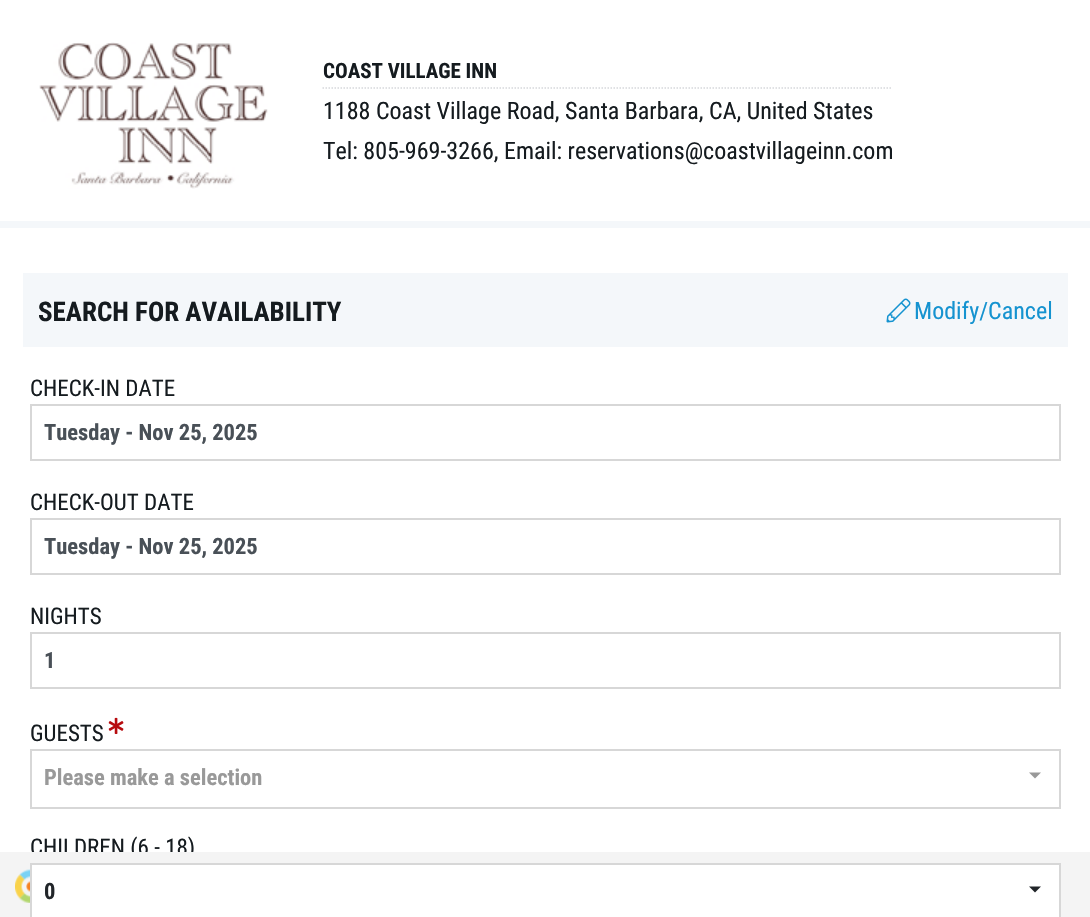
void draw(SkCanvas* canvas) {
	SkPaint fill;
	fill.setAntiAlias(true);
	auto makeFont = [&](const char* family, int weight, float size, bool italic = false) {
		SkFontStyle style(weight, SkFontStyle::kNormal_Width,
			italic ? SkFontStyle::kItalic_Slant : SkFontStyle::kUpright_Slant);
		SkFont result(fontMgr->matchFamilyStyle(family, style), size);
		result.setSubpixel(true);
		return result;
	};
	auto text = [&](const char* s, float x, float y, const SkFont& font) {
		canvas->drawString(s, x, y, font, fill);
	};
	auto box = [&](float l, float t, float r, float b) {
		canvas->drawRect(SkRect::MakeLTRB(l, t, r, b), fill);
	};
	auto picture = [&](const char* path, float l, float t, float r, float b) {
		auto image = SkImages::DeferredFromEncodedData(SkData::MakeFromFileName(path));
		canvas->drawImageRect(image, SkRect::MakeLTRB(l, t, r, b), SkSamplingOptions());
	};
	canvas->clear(0xFFFFFFFF);
	fill.setColor(0xFFF4F7FA);
	box(0, 221, 1090, 228);
	picture("image0.png", 39, 42, 268, 189);
	fill.setStyle(SkPaint::kStroke_Style);
	fill.setStrokeWidth(1.5f);
	fill.setColor(0xFFD6D8DB);
	fill.setPathEffect(SkDashPathEffect::Make({{1.5f, 1.5f}}, 0));
	canvas->drawPath(SkPathBuilder().moveTo(322.5f, 88).lineTo(892.5f, 88).detach(), fill);
	fill.setPathEffect(nullptr);
	fill.setStyle(SkPaint::kFill_Style);
	fill.setColor(0xFFF4F7FA);
	box(23, 273, 1068, 347);
	picture("image1.png", 886, 298, 911, 323);
	fill.setStyle(SkPaint::kStroke_Style);
	fill.setStrokeWidth(2);
	fill.setColor(0xFFD7D7D7);
	canvas->drawRect(SkRect::MakeLTRB(31, 405, 1060, 460), fill);
	canvas->drawRect(SkRect::MakeLTRB(31, 519, 1060, 574), fill);
	canvas->drawRect(SkRect::MakeLTRB(31, 633, 1060, 688), fill);
	picture("image2.png", 108, 717, 124, 734);
	canvas->drawRect(SkRect::MakeLTRB(31, 750, 1060, 808), fill);
	fill.setStyle(SkPaint::kFill_Style);
	fill.setColor(0xFF999999);
	canvas->drawPath(SkPathBuilder().moveTo(1029, 772.5f).lineTo(1041, 772.5f).lineTo(1035, 778.5f).close().detach(), fill);
	auto font1 = makeFont("Roboto Condensed", 700, 21);
	fill.setColor(0xFF151B1F);
	text("COAST VILLAGE INN", 323, 78, font1);
	auto font2 = makeFont("Roboto Condensed", 400, 24);
	text("1188 Coast Village Road, Santa Barbara, CA, United States", 323, 119, font2);
	text("Tel: 805-969-3266, Email: reservations@coastvillageinn.com", 323, 159, font2);
	auto font3 = makeFont("Roboto Condensed", 700, 27);
	text("SEARCH FOR AVAILABILITY", 38, 321, font3);
	fill.setColor(0xFF1593D0);
	text("Modify/Cancel", 914, 319, font2);
	auto font4 = makeFont("Roboto Condensed", 400, 23);
	fill.setColor(0xFF151B1F);
	text("CHECK-IN DATE", 30, 396, font4);
	auto font5 = makeFont("Roboto Condensed", 700, 22.5f);
	fill.setColor(0xFF495057);
	text("Tuesday - Nov 25, 2025", 44, 440, font5);
	fill.setColor(0xFF151B1F);
	text("CHECK-OUT DATE", 30, 510, font4);
	fill.setColor(0xFF495057);
	text("Tuesday - Nov 25, 2025", 44, 554, font5);
	fill.setColor(0xFF151B1F);
	text("NIGHTS", 30, 624, font4);
	fill.setColor(0xFF495057);
	text("1", 44, 668, font5);
	fill.setColor(0xFF151B1F);
	text("GUESTS", 30, 741, font4);
	fill.setColor(0xFF999999);
	text("Please make a selection", 44, 785, font5);
	fill.setColor(0xFF151B1F);
	text("CHILDREN (6 - 18)", 30, 855, font4);
	fill.setColor(0xFFF4F4F4);
	box(0, 852, 1090, 917);
	fill.setColor(0xFFFFFFFF);
	canvas->drawRect(SkRect::MakeLTRB(31, 864, 1060, 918), fill);
	fill.setStyle(SkPaint::kStroke_Style);
	fill.setColor(0xFFD7D7D7);
	canvas->drawRect(SkRect::MakeLTRB(31, 864, 1060, 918), fill);
	fill.setStyle(SkPaint::kFill_Style);
	fill.setColor(0xFF212529);
	text("0", 44, 899, font5);
	canvas->drawPath(SkPathBuilder().moveTo(1029, 886.5f).lineTo(1041, 886.5f).lineTo(1035, 892.5f).close().detach(), fill);
	picture("image3.png", 15, 869, 30, 903);
}
